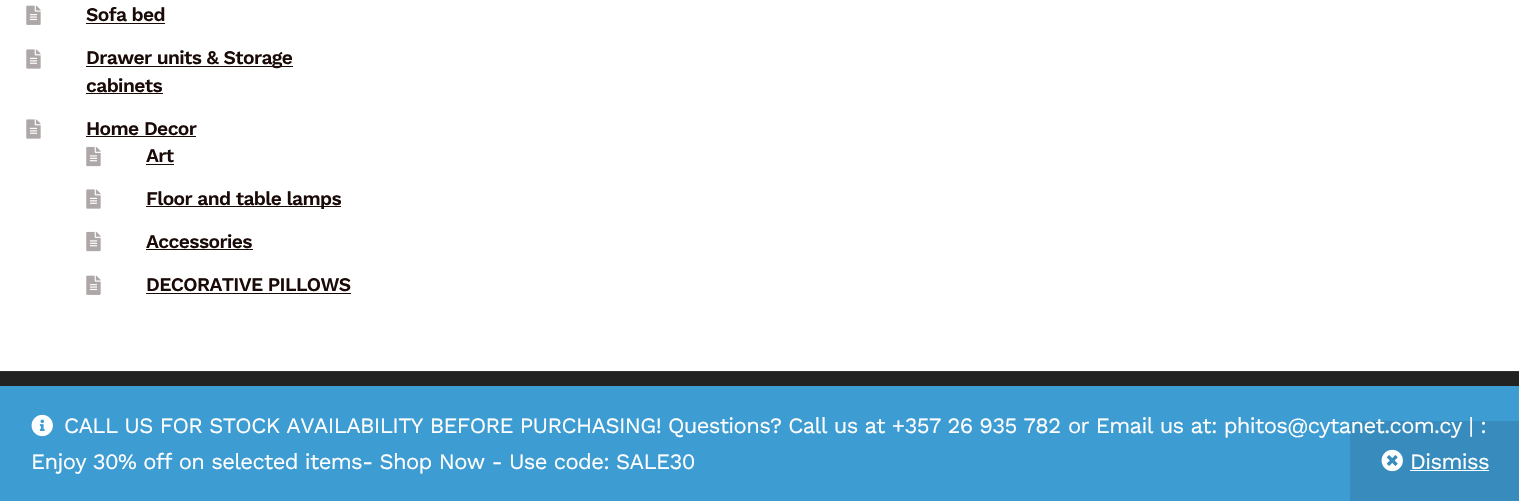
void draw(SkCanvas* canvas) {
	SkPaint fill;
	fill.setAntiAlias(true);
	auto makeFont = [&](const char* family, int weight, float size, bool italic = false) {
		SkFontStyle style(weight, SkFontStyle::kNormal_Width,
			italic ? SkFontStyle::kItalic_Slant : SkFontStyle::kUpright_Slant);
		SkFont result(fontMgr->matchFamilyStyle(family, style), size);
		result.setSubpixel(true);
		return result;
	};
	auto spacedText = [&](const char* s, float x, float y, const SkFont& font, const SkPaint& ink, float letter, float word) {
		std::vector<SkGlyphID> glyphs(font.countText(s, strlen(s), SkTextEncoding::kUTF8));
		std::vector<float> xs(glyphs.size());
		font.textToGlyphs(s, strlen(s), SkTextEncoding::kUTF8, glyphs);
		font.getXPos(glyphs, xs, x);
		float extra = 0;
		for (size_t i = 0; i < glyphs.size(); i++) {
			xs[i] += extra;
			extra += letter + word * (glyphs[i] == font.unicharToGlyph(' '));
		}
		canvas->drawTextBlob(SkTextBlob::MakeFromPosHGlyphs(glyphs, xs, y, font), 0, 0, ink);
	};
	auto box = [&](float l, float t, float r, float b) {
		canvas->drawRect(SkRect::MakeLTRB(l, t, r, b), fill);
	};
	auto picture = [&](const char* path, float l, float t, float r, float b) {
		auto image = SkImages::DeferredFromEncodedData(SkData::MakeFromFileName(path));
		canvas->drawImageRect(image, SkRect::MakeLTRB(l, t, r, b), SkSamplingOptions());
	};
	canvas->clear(0xFFFFFFFF);
	picture("image0.png", 26, 5, 41, 25);
	fill.setColor(0xFF1A0B09);
	box(86, 23, 165, 24);
	picture("image1.png", 26, 49, 41, 69);
	box(86, 66, 293, 67);
	box(86, 93, 163, 94);
	picture("image1.png", 26, 119, 41, 139);
	box(86, 136, 196, 137);
	picture("image2.png", 86, 146, 101, 167);
	box(146, 164, 174, 165);
	picture("image1.png", 86, 189, 101, 209);
	box(146, 206, 341, 207);
	picture("image2.png", 86, 231, 101, 252);
	box(146, 249, 253, 250);
	picture("image0.png", 86, 275, 101, 295);
	box(146, 293, 351, 294);
	fill.setColor(0xFF232222);
	box(0, 372, 1519, 386);
	fill.setColor(0xFF323131);
	box(0, 371, 1519, 372);
	fill.setColor(0xFF3D9CD2);
	box(0, 386, 1519, 501);
	picture("image3.png", 31, 414, 53, 437);
	fill.setColor(0xFF378CBD);
	box(1350, 421, 1519, 501);
	picture("image4.png", 1381, 449, 1403, 472);
	fill.setColor(0xFFFFFFFF);
	box(1410, 470, 1489, 471);
	auto font1 = makeFont("Work Sans", 600, 19.25f);
	fill.setColor(0xFF1A0B09);
	spacedText("Sofa bed", 86, 21, font1, fill, -0.62f, 0);
	spacedText("Drawer units & Storage", 86, 64, font1, fill, -0.62f, 0);
	spacedText("cabinets", 86, 92, font1, fill, -0.62f, 0);
	spacedText("Home Decor", 86, 135, font1, fill, -0.62f, 0);
	spacedText("Art", 146, 162, font1, fill, -0.62f, 0);
	spacedText("Floor and table lamps", 146, 205, font1, fill, -0.62f, 0);
	spacedText("Accessories", 146, 248, font1, fill, -0.62f, 0);
	spacedText("DECORATIVE PILLOWS", 146, 291, font1, fill, -0.62f, 0);
	auto font2 = makeFont("Work Sans", 400, 22);
	fill.setColor(0xFFFFFFFF);
	spacedText("CALL US FOR STOCK AVAILABILITY BEFORE PURCHASING! Questions? Call us at +357 26 935 782", 64, 433, font2, fill, -0.62f, 0);
	spacedText("or Email us at: phitos@cytanet.com.cy | :", 1068, 433, font2, fill, -0.62f, 0);
	spacedText("Enjoy 30% off on selected items- Shop Now - Use code: SALE30", 31, 469, font2, fill, -0.62f, 0);
	spacedText("Dismiss", 1410, 469, font2, fill, -0.62f, 0);
}
